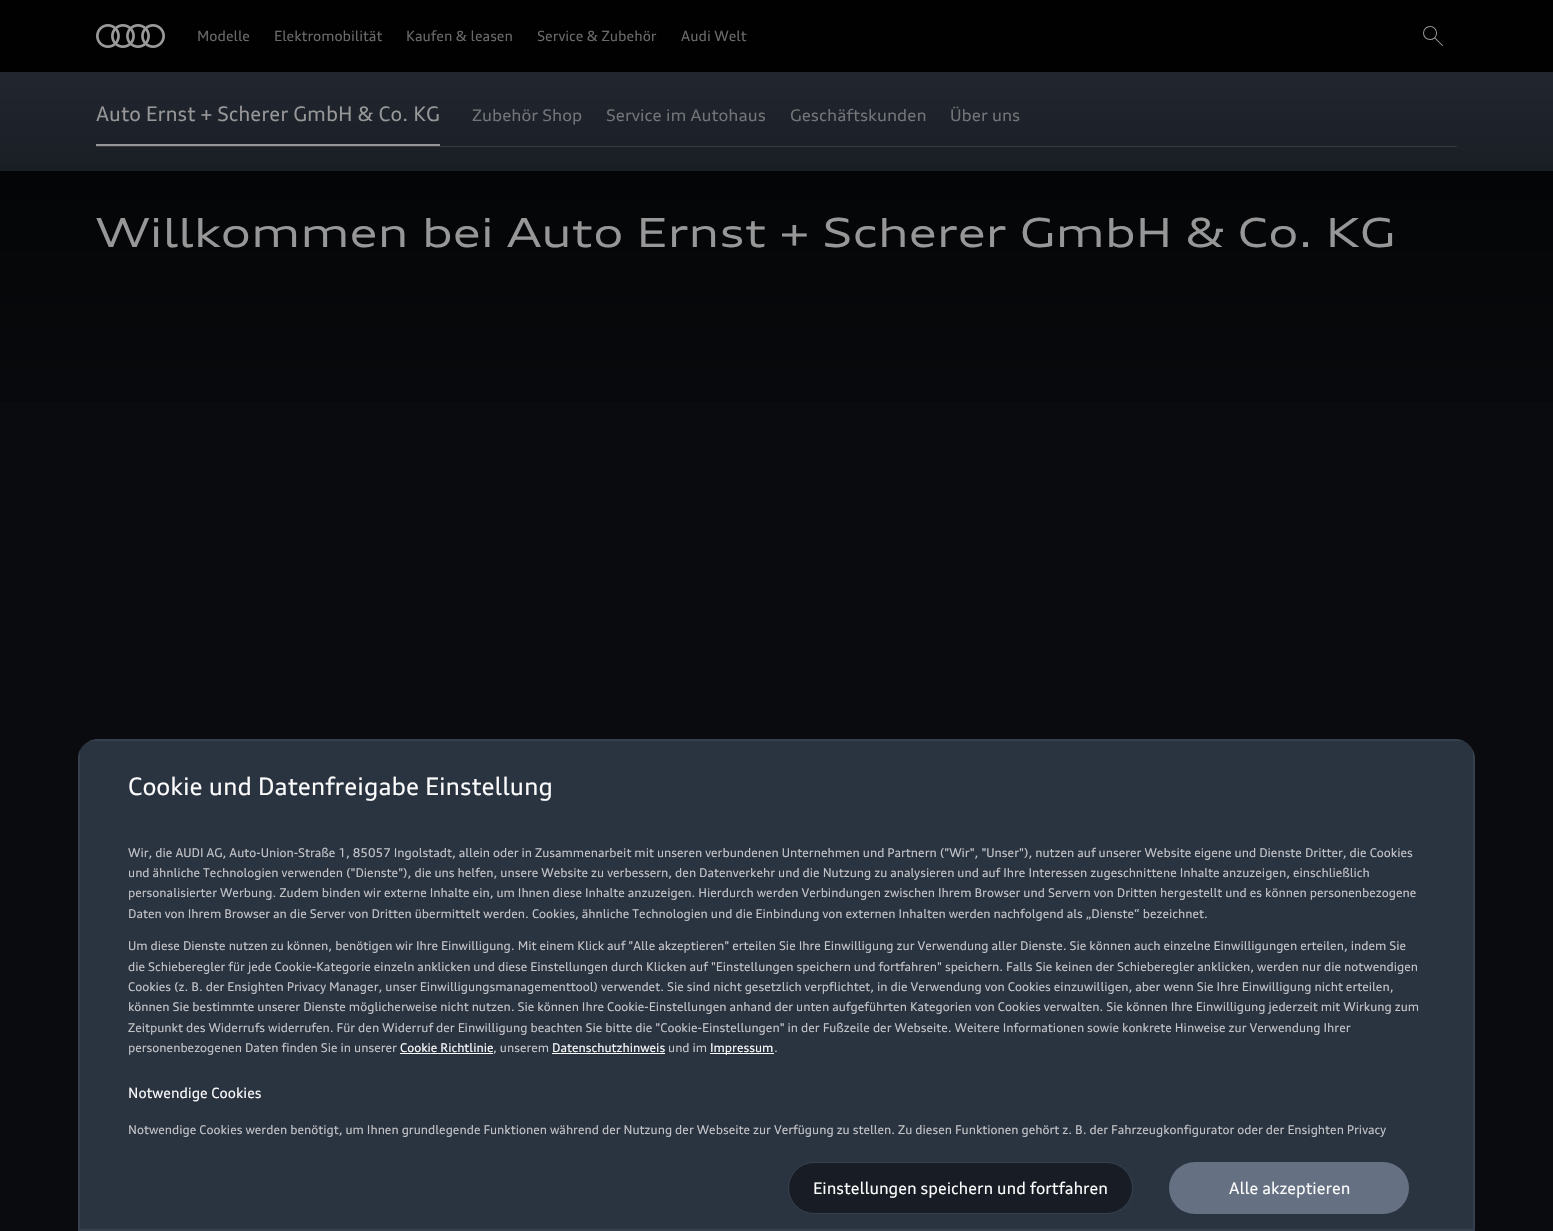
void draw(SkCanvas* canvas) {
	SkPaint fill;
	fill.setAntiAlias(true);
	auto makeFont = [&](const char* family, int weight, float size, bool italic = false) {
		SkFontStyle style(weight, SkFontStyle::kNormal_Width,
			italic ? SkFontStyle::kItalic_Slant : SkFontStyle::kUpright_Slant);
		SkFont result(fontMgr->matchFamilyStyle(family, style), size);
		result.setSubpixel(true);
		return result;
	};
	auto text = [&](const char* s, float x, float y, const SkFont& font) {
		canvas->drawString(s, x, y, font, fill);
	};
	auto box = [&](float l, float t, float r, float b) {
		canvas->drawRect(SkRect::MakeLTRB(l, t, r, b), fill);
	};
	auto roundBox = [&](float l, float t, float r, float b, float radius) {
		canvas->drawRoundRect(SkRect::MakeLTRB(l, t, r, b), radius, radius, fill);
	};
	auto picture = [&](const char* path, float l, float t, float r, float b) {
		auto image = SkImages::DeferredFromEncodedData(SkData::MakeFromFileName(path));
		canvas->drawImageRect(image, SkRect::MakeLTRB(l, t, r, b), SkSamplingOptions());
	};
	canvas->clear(0xFF0A0B0F);
	fill.setColor(0xFF010102);
	box(0, 0, 1553, 72);
	picture("image0.png", 96, 24, 165, 48);
	picture("image1.png", 1423, 26, 1444, 47);
	{
		const SkColor colors[] = {0xFF21262F, 0xFF1A1F26};
		const float stops[] = {0, 1};
		const SkPoint ends[] = {{777, 72}, {777, 171}};
		fill.setShader(SkGradientShader::MakeLinear(ends, colors, stops, 2, SkTileMode::kClamp));
		fill.setAlpha(255);
	}
	box(0, 72, 1553, 171);
	fill.setShader(nullptr);
	fill.setColor(0xFF35383E);
	box(96, 146, 1457, 147);
	fill.setColor(0xFF979798);
	box(96, 144, 440, 146);
	{
		const SkColor colors[] = {0xFF040506, 0xFF0A0B0F};
		const float stops[] = {0, 0.5f};
		const SkPoint ends[] = {{777, 171}, {777, 811}};
		fill.setShader(SkGradientShader::MakeLinear(ends, colors, stops, 2, SkTileMode::kClamp));
		fill.setAlpha(255);
	}
	box(0, 171, 1553, 402);
	fill.setShader(nullptr);
	fill.setColor(0xFF2A3340);
	canvas->drawPath(SkPathBuilder().moveTo(98, 739).lineTo(1455, 739).cubicTo(1466, 739, 1475, 748, 1475, 759).lineTo(1475, 1231).lineTo(78, 1231).lineTo(78, 759).cubicTo(78, 748, 87, 739, 98, 739).close().detach(), fill);
	fill.setColor(0xFF36404E);
	canvas->drawPath(SkPathBuilder(SkPathFillType::kEvenOdd).moveTo(78, 759).lineTo(78, 1231).lineTo(1475, 1231).lineTo(1475, 759).cubicTo(1475, 756, 1474, 753, 1473, 750).lineTo(1473, 1229).lineTo(80, 1229).lineTo(80, 750).cubicTo(79, 753, 78, 756, 78, 759).close().moveTo(98, 739).cubicTo(95, 739, 92, 740, 89, 741).lineTo(1464, 741).cubicTo(1461, 740, 1458, 739, 1455, 739).close().detach(), fill);
	fill.setColor(0xFFFCFCFD);
	box(400, 1053, 493, 1054);
	box(552, 1053, 665, 1054);
	box(710, 1053, 774, 1054);
	fill.setColor(0xFF181D25);
	canvas->drawRoundRect(SkRect::MakeLTRB(788.5f, 1162.5f, 1132.5f, 1213.5f), 25.5f, 25.5f, fill);
	fill.setStyle(SkPaint::kStroke_Style);
	fill.setStrokeWidth(1);
	fill.setColor(0xFF36404E);
	canvas->drawRoundRect(SkRect::MakeLTRB(788.5f, 1162.5f, 1132.5f, 1213.5f), 25.5f, 25.5f, fill);
	fill.setStyle(SkPaint::kFill_Style);
	fill.setColor(0xFF657082);
	roundBox(1169, 1162, 1409, 1214, 26);
	auto font1 = makeFont("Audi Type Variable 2", 400, 14);
	fill.setColor(0xFF6A6A6B);
	text("Modelle", 197, 41, font1);
	text("Elektromobilität", 274, 41, font1);
	text("Kaufen & leasen", 406, 41, font1);
	text("Service & Zubehör", 537, 41, font1);
	text("Audi Welt", 681, 41, font1);
	auto font2 = makeFont("Audi Type Variable 2", 400, 20);
	fill.setColor(0xFF979798);
	text("Auto Ernst + Scherer GmbH & Co. KG", 96, 121, font2);
	auto font3 = makeFont("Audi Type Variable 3", 400, 16);
	fill.setColor(0xFF737477);
	text("Zubehör Shop", 472, 121, font3);
	text("Service im Autohaus", 606, 121, font3);
	text("Geschäftskunden", 790, 121, font3);
	text("Über uns", 950, 121, font3);
	auto font4 = makeFont("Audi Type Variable", 400, 40);
	fill.setColor(0xFF979798);
	text("Willkommen bei Auto Ernst + Scherer GmbH & Co. KG", 96, 247, font4);
	auto font5 = makeFont("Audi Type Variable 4", 400, 24);
	fill.setColor(0xFFFCFCFD);
	text("Cookie und Datenfreigabe Einstellung", 128, 795, font5);
	auto font6 = makeFont("Audi Type Variable 4", 400, 12);
	fill.setColor(0xFFC3C4C8);
	text("Wir, die AUDI AG, Auto-Union-Straße 1, 85057 Ingolstadt, allein oder in Zusammenarbeit mit unseren verbundenen Unternehmen und Partnern (\"Wir\", \"Unser\"), nutzen auf unserer Website eigene und Dienste Dritter, die Cookies", 128, 857, font6);
	text("und ähnliche Technologien verwenden (\"Dienste\"), die uns helfen, unsere Website zu verbessern, den Datenverkehr und die Nutzung zu analysieren und auf Ihre Interessen zugeschnittene Inhalte anzuzeigen, einschließlich", 128, 877, font6);
	text("personalisierter Werbung. Zudem binden wir externe Inhalte ein, um Ihnen diese Inhalte anzuzeigen. Hierdurch werden Verbindungen zwischen Ihrem Browser und Servern von Dritten hergestellt und es können personenbezogene", 128, 897, font6);
	text("Daten von Ihrem Browser an die Server von Dritten übermittelt werden. Cookies, ähnliche Technologien und die Einbindung von externen Inhalten werden nachfolgend als „Dienste“ bezeichnet.", 128, 918, font6);
	text("Um diese Dienste nutzen zu können, benötigen wir Ihre Einwilligung. Mit einem Klick auf \"Alle akzeptieren\" erteilen Sie Ihre Einwilligung zur Verwendung aller Dienste. Sie können auch einzelne Einwilligungen erteilen, indem Sie", 128, 950, font6);
	text("die Schieberegler für jede Cookie-Kategorie einzeln anklicken und diese Einstellungen durch Klicken auf \"Einstellungen speichern und fortfahren\" speichern. Falls Sie keinen der Schieberegler anklicken, werden nur die notwendigen", 128, 971, font6);
	text("Cookies (z. B. der Ensighten Privacy Manager, unser Einwilligungsmanagementtool) verwendet. Sie sind nicht gesetzlich verpflichtet, in die Verwendung von Cookies einzuwilligen, aber wenn Sie Ihre Einwilligung nicht erteilen,", 128, 991, font6);
	text("können Sie bestimmte unserer Dienste möglicherweise nicht nutzen. Sie können Ihre Cookie-Einstellungen anhand der unten aufgeführten Kategorien von Cookies verwalten. Sie können Ihre Einwilligung jederzeit mit Wirkung zum", 128, 1011, font6);
	text("Zeitpunkt des Widerrufs widerrufen. Für den Widerruf der Einwilligung beachten Sie bitte die \"Cookie-Einstellungen\" in der Fußzeile der Webseite. Weitere Informationen sowie konkrete Hinweise zur Verwendung Ihrer", 128, 1032, font6);
	text("personenbezogenen Daten finden Sie in unserer", 128, 1052, font6);
	fill.setColor(0xFFFCFCFD);
	text("Cookie Richtlinie", 400, 1052, font6);
	fill.setColor(0xFFC3C4C8);
	text(", unserem", 493, 1052, font6);
	fill.setColor(0xFFFCFCFD);
	text("Datenschutzhinweis", 552, 1052, font6);
	fill.setColor(0xFFC3C4C8);
	text("und im", 668, 1052, font6);
	fill.setColor(0xFFFCFCFD);
	text("Impressum", 710, 1052, font6);
	fill.setColor(0xFFC3C4C8);
	text(".", 774, 1052, font6);
	auto font7 = makeFont("Audi Type Variable 4", 400, 14);
	fill.setColor(0xFFFCFCFD);
	text("Notwendige Cookies", 128, 1098, font7);
	fill.setColor(0xFFC3C4C8);
	text("Notwendige Cookies werden benötigt, um Ihnen grundlegende Funktionen während der Nutzung der Webseite zur Verfügung zu stellen. Zu diesen Funktionen gehört z. B. der Fahrzeugkonfigurator oder der Ensighten Privacy", 128, 1134, font6);
	auto font8 = makeFont("Audi Type Variable 4", 400, 16);
	fill.setColor(0xFFFCFCFD);
	text("Einstellungen speichern und fortfahren", 813, 1194, font8);
	text("Alle akzeptieren", 1229, 1194, font8);
}
